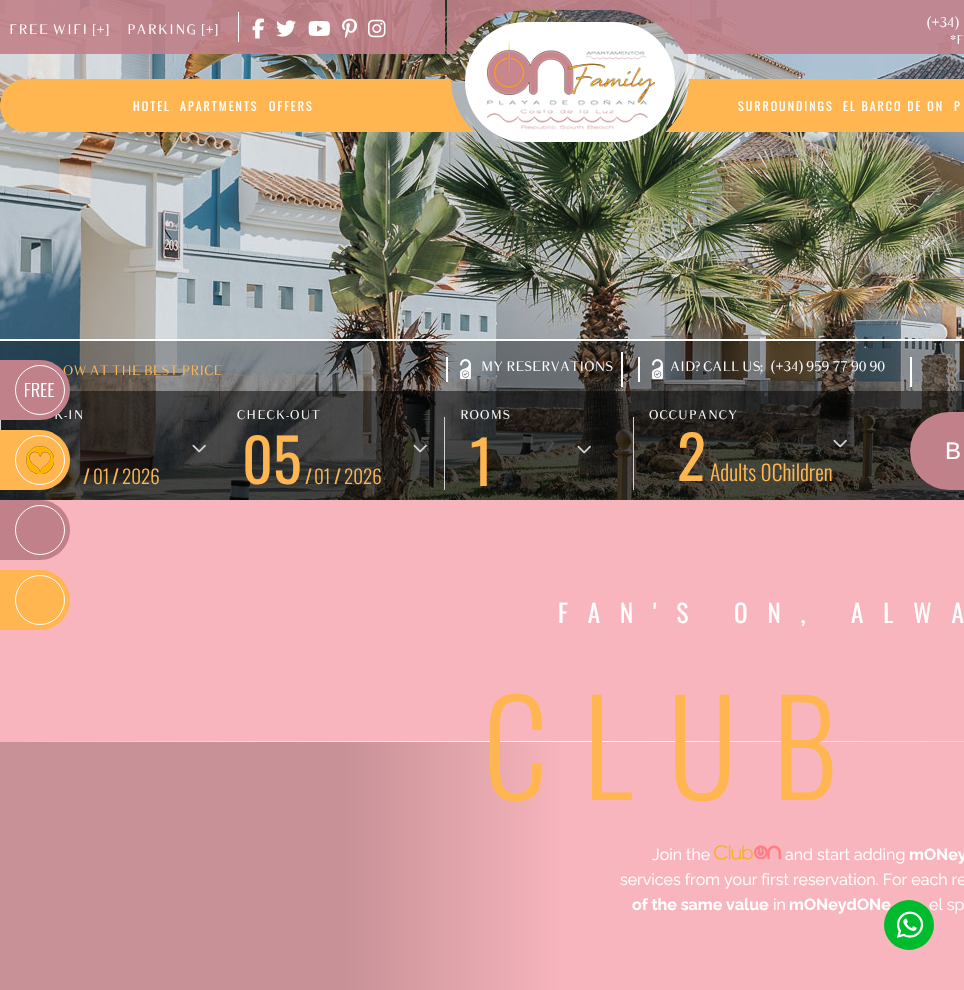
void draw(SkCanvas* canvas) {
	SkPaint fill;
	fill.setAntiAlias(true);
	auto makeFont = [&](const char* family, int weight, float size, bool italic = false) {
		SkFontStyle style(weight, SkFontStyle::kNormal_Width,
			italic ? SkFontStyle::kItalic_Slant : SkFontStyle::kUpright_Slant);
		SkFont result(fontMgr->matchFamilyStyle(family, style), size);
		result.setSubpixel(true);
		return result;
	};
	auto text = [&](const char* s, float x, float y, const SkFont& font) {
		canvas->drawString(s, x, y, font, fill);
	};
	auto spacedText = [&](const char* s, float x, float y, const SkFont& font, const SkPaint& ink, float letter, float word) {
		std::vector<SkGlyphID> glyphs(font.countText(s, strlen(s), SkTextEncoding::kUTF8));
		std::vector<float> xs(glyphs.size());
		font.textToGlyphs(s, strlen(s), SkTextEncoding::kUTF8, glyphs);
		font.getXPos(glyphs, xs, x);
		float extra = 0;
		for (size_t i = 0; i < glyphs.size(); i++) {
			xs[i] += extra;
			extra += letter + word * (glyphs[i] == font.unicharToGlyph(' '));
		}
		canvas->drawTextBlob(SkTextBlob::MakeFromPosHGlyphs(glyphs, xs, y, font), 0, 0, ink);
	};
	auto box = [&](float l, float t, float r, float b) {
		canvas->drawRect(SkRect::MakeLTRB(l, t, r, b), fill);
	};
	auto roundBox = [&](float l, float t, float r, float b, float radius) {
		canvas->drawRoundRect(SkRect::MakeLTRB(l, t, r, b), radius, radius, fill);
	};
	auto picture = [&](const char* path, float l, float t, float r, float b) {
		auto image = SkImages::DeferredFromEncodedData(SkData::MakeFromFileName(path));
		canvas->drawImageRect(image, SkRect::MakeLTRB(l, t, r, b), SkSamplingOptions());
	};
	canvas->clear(0xFFF9B5BD);
	picture("image6.png", 0, 0, 964, 500);
	canvas->save();
	canvas->clipRect(SkRect::MakeLTRB(447, 0, 692, 54));
	fill.setStyle(SkPaint::kStroke_Style);
	fill.setStrokeWidth(55);
	fill.setColor(0xE6C1818A);
	canvas->drawRoundRect(SkRect::MakeLTRB(417.5f, -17.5f, 722.5f, 207.5f), 112.5f, 112.5f, fill);
	canvas->restore();
	fill.setStyle(SkPaint::kFill_Style);
	box(690, 0, 964, 54);
	{
		const SkColor colors[] = {0xE6C1818A, 0x00C1818A, 0x00000000};
		const float stops[] = {0.39f, 0.39f, 1};
		const SkPoint ends[] = {{0, 27}, {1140, 27}};
		fill.setShader(SkGradientShader::MakeLinear(ends, colors, stops, 3, SkTileMode::kClamp));
		fill.setAlpha(255);
	}
	box(0, 0, 445, 54);
	fill.setShader(nullptr);
	fill.setColor(0xFFFFFFFF);
	box(238, 12, 239, 42);
	picture("image0.png", 252, 18, 264, 39);
	picture("image1.png", 276, 20, 296, 37);
	picture("image2.png", 308, 21, 330, 36);
	picture("image3.png", 342, 18, 357, 39);
	picture("image4.png", 368, 19, 386, 38);
	roundBox(465, 22, 675, 142, 60);
	picture("image5.png", 486, 40, 655, 130);
	fill.setColor(0xFFFFB650);
	canvas->drawPath(SkPathBuilder().moveTo(26.5f, 79).lineTo(431, 79).lineTo(431, 132).lineTo(26.5f, 132).cubicTo(12, 132, 0, 120, 0, 105.5f).cubicTo(0, 91, 12, 79, 26.5f, 79).close().detach(), fill);
	canvas->save();
	canvas->clipRect(SkRect::MakeLTRB(431, 79, 481, 132));
	fill.setStyle(SkPaint::kStroke_Style);
	fill.setStrokeWidth(35);
	canvas->drawPath(SkPathBuilder().moveTo(541, -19.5f).cubicTo(600.5f, -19.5f, 648.5f, 24, 648.5f, 78).cubicTo(648.5f, 132, 600.5f, 175.5f, 541, 175.5f).cubicTo(481.5f, 175.5f, 433.5f, 132, 433.5f, 78).cubicTo(433.5f, 24, 481.5f, -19.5f, 541, -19.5f).close().detach(), fill);
	canvas->restore();
	fill.setStyle(SkPaint::kFill_Style);
	box(709, 79, 964, 132);
	canvas->save();
	canvas->clipRect(SkRect::MakeLTRB(664, 79, 714, 132));
	fill.setStyle(SkPaint::kStroke_Style);
	canvas->drawPath(SkPathBuilder().moveTo(599, -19.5f).cubicTo(658.5f, -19.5f, 706.5f, 24, 706.5f, 78).cubicTo(706.5f, 132, 658.5f, 175.5f, 599, 175.5f).cubicTo(539.5f, 175.5f, 491.5f, 132, 491.5f, 78).cubicTo(491.5f, 24, 539.5f, -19.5f, 599, -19.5f).close().detach(), fill);
	canvas->restore();
	fill.setStyle(SkPaint::kFill_Style);
	fill.setColor(0xA6000000);
	box(0, 391, 964, 500);
	fill.setColor(0xFFFFB650);
	canvas->drawPath(SkPathBuilder().moveTo(0, 430).lineTo(40, 430).cubicTo(56.5f, 430, 70, 443.5f, 70, 460).cubicTo(70, 476.5f, 56.5f, 490, 40, 490).lineTo(0, 490).close().detach(), fill);
	fill.setStyle(SkPaint::kStroke_Style);
	fill.setStrokeWidth(1);
	fill.setColor(0xFFFFFFFF);
	canvas->drawCircle(40, 460, 24.5f, fill);
	picture("image8.png", 26, 446, 54, 474);
	fill.setStyle(SkPaint::kFill_Style);
	fill.setColor(0xFFC1818A);
	canvas->drawPath(SkPathBuilder().moveTo(0, 500).lineTo(40, 500).cubicTo(56.5f, 500, 70, 513.5f, 70, 530).cubicTo(70, 546.5f, 56.5f, 560, 40, 560).lineTo(0, 560).close().detach(), fill);
	fill.setStyle(SkPaint::kStroke_Style);
	fill.setColor(0xFFFFFFFF);
	canvas->drawCircle(40, 530, 24.5f, fill);
	fill.setStyle(SkPaint::kFill_Style);
	fill.setColor(0xFFFFB650);
	canvas->drawPath(SkPathBuilder().moveTo(0, 570).lineTo(40, 570).cubicTo(56.5f, 570, 70, 583.5f, 70, 600).cubicTo(70, 616.5f, 56.5f, 630, 40, 630).lineTo(0, 630).close().detach(), fill);
	fill.setStyle(SkPaint::kStroke_Style);
	fill.setColor(0xFFFFFFFF);
	canvas->drawCircle(40, 600, 24.5f, fill);
	fill.setStyle(SkPaint::kFill_Style);
	fill.setColor(0x4D000000);
	box(0, 341, 964, 391);
	fill.setColor(0xFFFFFFFF);
	box(0, 339, 964, 341);
	box(446, 357, 448, 382);
	picture("image9.png", 460, 359, 471, 380);
	box(621, 352, 623, 387);
	box(638, 357, 640, 382);
	picture("image10.png", 652, 359, 663, 380);
	fill.setColor(0xFFD3D3D3);
	box(0, 417, 1, 430);
	picture("image11.png", 192, 444, 206, 453);
	picture("image12.png", 413, 444, 427, 453);
	box(633, 417, 634, 490);
	box(444, 417, 445, 490);
	picture("image13.png", 577, 445, 591, 454);
	picture("image14.png", 833, 439, 847, 448);
	fill.setColor(0xFFFFFFFF);
	box(910, 357, 912, 387);
	fill.setColor(0xFFC1818A);
	roundBox(910, 412, 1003, 490, 39);
	{
		const SkColor colors[] = {0xFFF9B5BD, 0xFFFFFFFF, 0xFFF9B5BD};
		const float stops[] = {0, 0.5f, 1};
		const SkPoint ends[] = {{0, 742}, {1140, 742}};
		fill.setShader(SkGradientShader::MakeLinear(ends, colors, stops, 3, SkTileMode::kClamp));
		fill.setAlpha(255);
	}
	box(19, 741, 964, 742);
	{
		const SkColor colors[] = {0xFFF9B5BD, 0xFFC79197, 0xFFC79197};
		const float stops[] = {0.5f, 0.7f, 1};
		const SkPoint ends[] = {{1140, 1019}, {0, 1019}};
		fill.setShader(SkGradientShader::MakeLinear(ends, colors, stops, 3, SkTileMode::kClamp));
		fill.setAlpha(255);
	}
	box(0, 742, 559, 990);
	picture("image15.png", 714, 845, 781, 860);
	auto font1 = makeFont("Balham", 400, 13);
	fill.setShader(nullptr);
	fill.setColor(0xFFFFFFFF);
	spacedText("FREE WIFI [+]", 9, 34, font1, fill, 1, 0);
	spacedText("PARKING [+]", 127, 34, font1, fill, 1, 0);
	auto font2 = makeFont("Balham", 400, 14);
	text("(+34)", 927, 27, font2);
	auto font3 = makeFont("Balham", 400, 12);
	text("*F", 950, 44, font3);
	auto font4 = makeFont("Oswald", 400, 12);
	spacedText("HOTEL", 133, 111, font4, fill, 2, 0);
	spacedText("APARTMENTS", 180, 111, font4, fill, 2, 0);
	spacedText("OFFERS", 269, 111, font4, fill, 2, 0);
	spacedText("SURROUNDINGS", 738, 111, font4, fill, 2, 0);
	spacedText("EL BARCO DE ON", 843, 111, font4, fill, 2, 0);
	spacedText("P", 954, 111, font4, fill, 2, 0);
	text("MY RESERVATIONS", 481, 371, font1);
	text("AID? CALL US:", 670, 371, font1);
	text("(+34) 959 77 90 90", 771, 371, font2);
	fill.setColor(0xFFFFB650);
	text("OW AT THE BEST PRICE", 63, 375, font1);
	fill.setColor(0xFFFFFFFF);
	spacedText("K-IN", 54, 419, font3, fill, 1, 0);
	fill.setColor(0xFFC1818A);
	canvas->drawPath(SkPathBuilder().moveTo(0, 360).lineTo(40, 360).cubicTo(56.5f, 360, 70, 373.5f, 70, 390).cubicTo(70, 406.5f, 56.5f, 420, 40, 420).lineTo(0, 420).close().detach(), fill);
	fill.setStyle(SkPaint::kStroke_Style);
	fill.setColor(0xFFFFFFFF);
	canvas->drawCircle(40, 390, 24.5f, fill);
	picture("image7.png", 25, 383, 54, 397);
	fill.setStyle(SkPaint::kFill_Style);
	spacedText("CHECK-OUT", 237, 419, font3, fill, 1, 0);
	auto font5 = makeFont("Oswald", 400, 19);
	fill.setColor(0xFFFFB650);
	text("/", 83, 484, font5);
	auto font6 = makeFont("Oswald", 300, 19);
	text("01", 93, 484, font6);
	text("/", 112, 484, font5);
	text("2026", 122, 484, font6);
	auto font7 = makeFont("Oswald", 400, 60);
	text("05", 242, 484, font7);
	text("/", 305, 484, font5);
	text("01", 314, 484, font6);
	text("/", 334, 484, font5);
	text("2026", 344, 484, font6);
	fill.setColor(0xFFFFFFFF);
	spacedText("ROOMS", 460, 419, font3, fill, 1, 0);
	fill.setColor(0xFFFFB650);
	text("1", 470, 486, font7);
	fill.setColor(0xFFFFFFFF);
	spacedText("OCCUPANCY", 649, 419, font3, fill, 1, 0);
	fill.setColor(0xFFFFB650);
	text("2", 677, 481, font7);
	auto font8 = makeFont("Oswald", 300, 21.5f);
	text("Adults 0Children", 710, 481, font8);
	auto font9 = makeFont("Liberation Sans", 400, 24);
	fill.setColor(0xFFFFFFFF);
	spacedText("B", 945, 459, font9, fill, 2, 0);
	auto font10 = makeFont("Oswald", 400, 25);
	spacedText("FAN'S ON, ALWA", 558, 623, font10, fill, 20, 0);
	auto font11 = makeFont("Oswald", 300, 130);
	fill.setColor(0xFFFFB650);
	spacedText("CLUB", 483, 800, font11, fill, 35, 0);
	auto font12 = makeFont("Raleway", 400, 16);
	fill.setColor(0xFFFFFFFF);
	text("Join the", 652, 860, font12);
	text("and start adding", 785, 860, font12);
	auto font13 = makeFont("Raleway", 700, 16);
	text("mONey", 909, 860, font13);
	text("services from your first reservation. For each re", 620, 885, font12);
	text("of the same value", 632, 910, font13);
	text("in", 773, 910, font12);
	text("mONeydONe", 789, 910, font13);
	text("el sp", 929, 910, font12);
	fill.setColor(0xFF00BB2D);
	canvas->drawCircle(909, 925, 25, fill);
	picture("image16.png", 896, 911, 924, 938);
}
